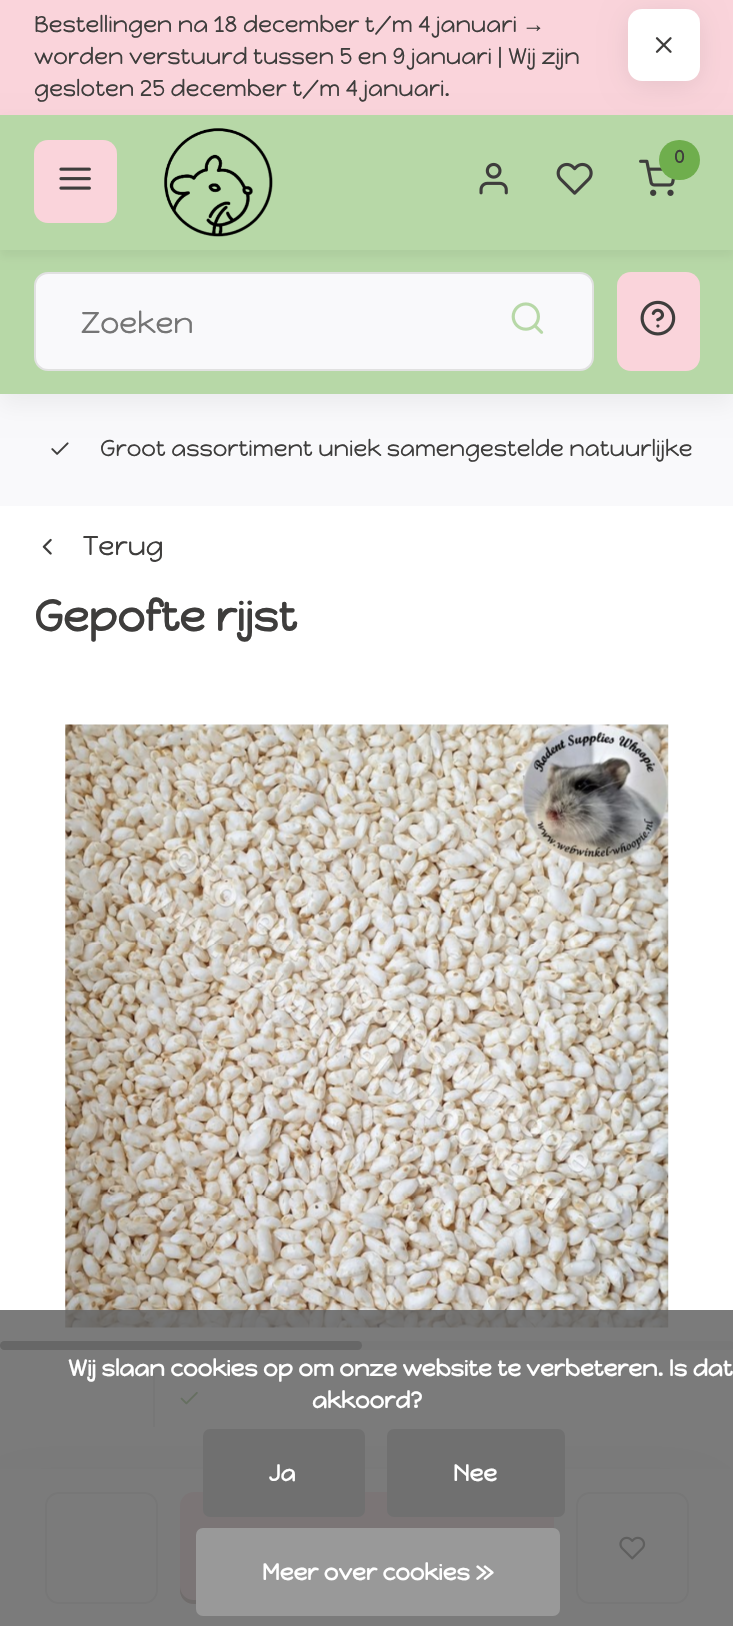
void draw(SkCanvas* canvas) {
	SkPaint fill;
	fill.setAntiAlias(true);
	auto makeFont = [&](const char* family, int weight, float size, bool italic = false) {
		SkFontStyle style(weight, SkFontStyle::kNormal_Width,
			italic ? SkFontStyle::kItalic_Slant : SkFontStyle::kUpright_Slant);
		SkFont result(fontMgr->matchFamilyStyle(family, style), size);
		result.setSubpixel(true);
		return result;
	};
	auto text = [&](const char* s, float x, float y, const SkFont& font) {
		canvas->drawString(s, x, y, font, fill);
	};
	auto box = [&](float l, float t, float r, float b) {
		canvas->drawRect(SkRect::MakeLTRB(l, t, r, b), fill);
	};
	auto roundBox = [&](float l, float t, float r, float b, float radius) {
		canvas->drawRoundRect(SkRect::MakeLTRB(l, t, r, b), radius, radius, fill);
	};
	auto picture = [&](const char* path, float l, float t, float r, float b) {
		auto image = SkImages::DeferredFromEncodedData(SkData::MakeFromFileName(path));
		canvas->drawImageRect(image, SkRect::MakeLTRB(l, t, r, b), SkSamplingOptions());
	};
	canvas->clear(0xFFFFFFFF);
	fill.setColor(0xFFFAD4DB);
	box(0, 0, 733, 115);
	fill.setColor(0x14000000);
	fill.setMaskFilter(SkMaskFilter::MakeBlur(kNormal_SkBlurStyle, 13.5f));
	canvas->drawRoundRect(SkRect::MakeLTRB(628, 14, 700, 86), 14, 14, fill);
	fill.setMaskFilter(nullptr);
	fill.setColor(0xFFFFFFFF);
	roundBox(628, 9, 700, 81, 14);
	picture("image0.png", 655, 37, 672, 53);
	fill.setColor(0xFFF9F9FB);
	box(0, 394, 733, 506);
	fill.setColor(0x0D000000);
	fill.setMaskFilter(SkMaskFilter::MakeBlur(kNormal_SkBlurStyle, 11));
	canvas->drawRect(SkRect::MakeLTRB(0, 126, 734, 405), fill);
	fill.setMaskFilter(nullptr);
	fill.setColor(0xFFB7D8A7);
	box(0, 250, 733, 394);
	fill.setColor(0x0D000000);
	fill.setMaskFilter(SkMaskFilter::MakeBlur(kNormal_SkBlurStyle, 4.5f));
	canvas->drawRect(SkRect::MakeLTRB(0, 122, 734, 257), fill);
	fill.setMaskFilter(nullptr);
	fill.setColor(0xFFB7D8A7);
	box(0, 115, 733, 250);
	fill.setColor(0xFFFAD4DB);
	roundBox(34, 140, 117, 223, 14);
	picture("image1.png", 59, 167, 91, 190);
	picture("image2.png", 164, 128, 273, 237);
	picture("image3.png", 639, 159, 675, 196);
	fill.setColor(0xFF6FAE4D);
	roundBox(659, 140, 700, 180, 20);
	picture("image4.png", 479, 162, 508, 195);
	picture("image5.png", 556, 162, 593, 195);
	fill.setColor(0xFFF9F9FB);
	canvas->drawRoundRect(SkRect::MakeLTRB(35, 273, 593, 370), 13, 13, fill);
	fill.setStyle(SkPaint::kStroke_Style);
	fill.setStrokeWidth(2);
	fill.setColor(0xFFE1E1E1);
	canvas->drawRoundRect(SkRect::MakeLTRB(35, 273, 593, 370), 13, 13, fill);
	picture("image6.png", 511, 302, 544, 334);
	fill.setStyle(SkPaint::kFill_Style);
	fill.setColor(0xFFFAD4DB);
	roundBox(617, 272, 700, 371, 14);
	picture("image7.png", 640, 300, 676, 336);
	picture("image8.png", 51, 442, 69, 455);
	picture("image9.png", 42, 538, 52, 555);
	picture("image10.png", 65, 724, 669, 1328);
	fill.setColor(0xFFE6E6E6);
	roundBox(0, 1341, 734, 1350, 4.5f);
	fill.setColor(0x80000000);
	roundBox(0, 1341, 362, 1350, 4.5f);
	fill.setColor(0xFFE1E1E1);
	box(153, 1373, 155, 1427);
	picture("image11.png", 180, 1391, 198, 1405);
	fill.setColor(0x26000000);
	fill.setMaskFilter(SkMaskFilter::MakeBlur(kNormal_SkBlurStyle, 34));
	canvas->drawRect(SkRect::MakeLTRB(-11, 1483, 722, 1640), fill);
	fill.setMaskFilter(nullptr);
	fill.setColor(0xFFFFFFFF);
	box(0, 1469, 733, 1626);
	fill.setStyle(SkPaint::kStroke_Style);
	fill.setColor(0xFFE1E1E1);
	canvas->drawRoundRect(SkRect::MakeLTRB(46, 1493, 157, 1603), 13, 13, fill);
	fill.setStyle(SkPaint::kFill_Style);
	fill.setColor(0xFFFAD4DB);
	roundBox(180, 1492, 554, 1604, 14);
	fill.setColor(0xFFAE958E);
	canvas->drawPath(SkPathBuilder().moveTo(180, 1586).lineTo(180, 1590).cubicTo(180, 1598, 186, 1604, 194, 1604).lineTo(540, 1604).cubicTo(548, 1604, 554, 1598, 554, 1590).lineTo(554, 1586).cubicTo(554, 1594, 547, 1600, 540, 1600).lineTo(194, 1600).cubicTo(186, 1600, 180, 1594, 180, 1586).close().detach(), fill);
	fill.setStyle(SkPaint::kStroke_Style);
	fill.setColor(0xFFE1E1E1);
	canvas->drawRoundRect(SkRect::MakeLTRB(577, 1493, 688, 1603), 13, 13, fill);
	picture("image12.png", 619, 1536, 646, 1560);
	fill.setStyle(SkPaint::kFill_Style);
	fill.setColor(0xD9646464);
	box(0, 1310, 733, 1626);
	fill.setColor(0xFF707070);
	roundBox(203, 1429, 365, 1517, 7);
	roundBox(387, 1429, 565, 1517, 7);
	fill.setColor(0xFF999999);
	roundBox(196, 1528, 560, 1616, 7);
	auto font1 = makeFont("Happy Monkey", 400, 22.95f);
	fill.setColor(0xFF3E3D3C);
	text("Bestellingen na 18 december t/m 4 januari", 34, 32, font1);
	auto font2 = makeFont("Liberation Sans", 400, 22.95f);
	text("→", 522, 32, font2);
	text("worden verstuurd tussen 5 en 9 januari | Wij zijn", 34, 64, font1);
	text("gesloten 25 december t/m 4 januari.", 34, 96, font1);
	auto font3 = makeFont("Happy Monkey", 700, 18);
	text("0", 674, 163, font3);
	auto font4 = makeFont("Happy Monkey", 400, 30);
	fill.setColor(0xFF757575);
	text("Zoeken", 81, 333, font4);
	fill.setColor(0xFF3E3D3C);
	text("Groot assortiment uniek samengestelde natuurlijke", 100, 456, font1);
	auto font5 = makeFont("Happy Monkey", 400, 27);
	text("Terug", 83, 555, font5);
	auto font6 = makeFont("Happy Monkey", 700, 43.25f);
	text("Gepofte rijst", 34, 631, font6);
	auto font7 = makeFont("Happy Monkey", 700, 22.95f);
	fill.setColor(0xFFFFFFFF);
	text("Wij slaan cookies op om onze website te verbeteren. Is dat", 68, 1376, font7);
	text("akkoord?", 312, 1408, font7);
	text("Ja", 269, 1481, font7);
	text("Nee", 453, 1481, font7);
	text("Meer over cookies »", 262, 1580, font7);
}
